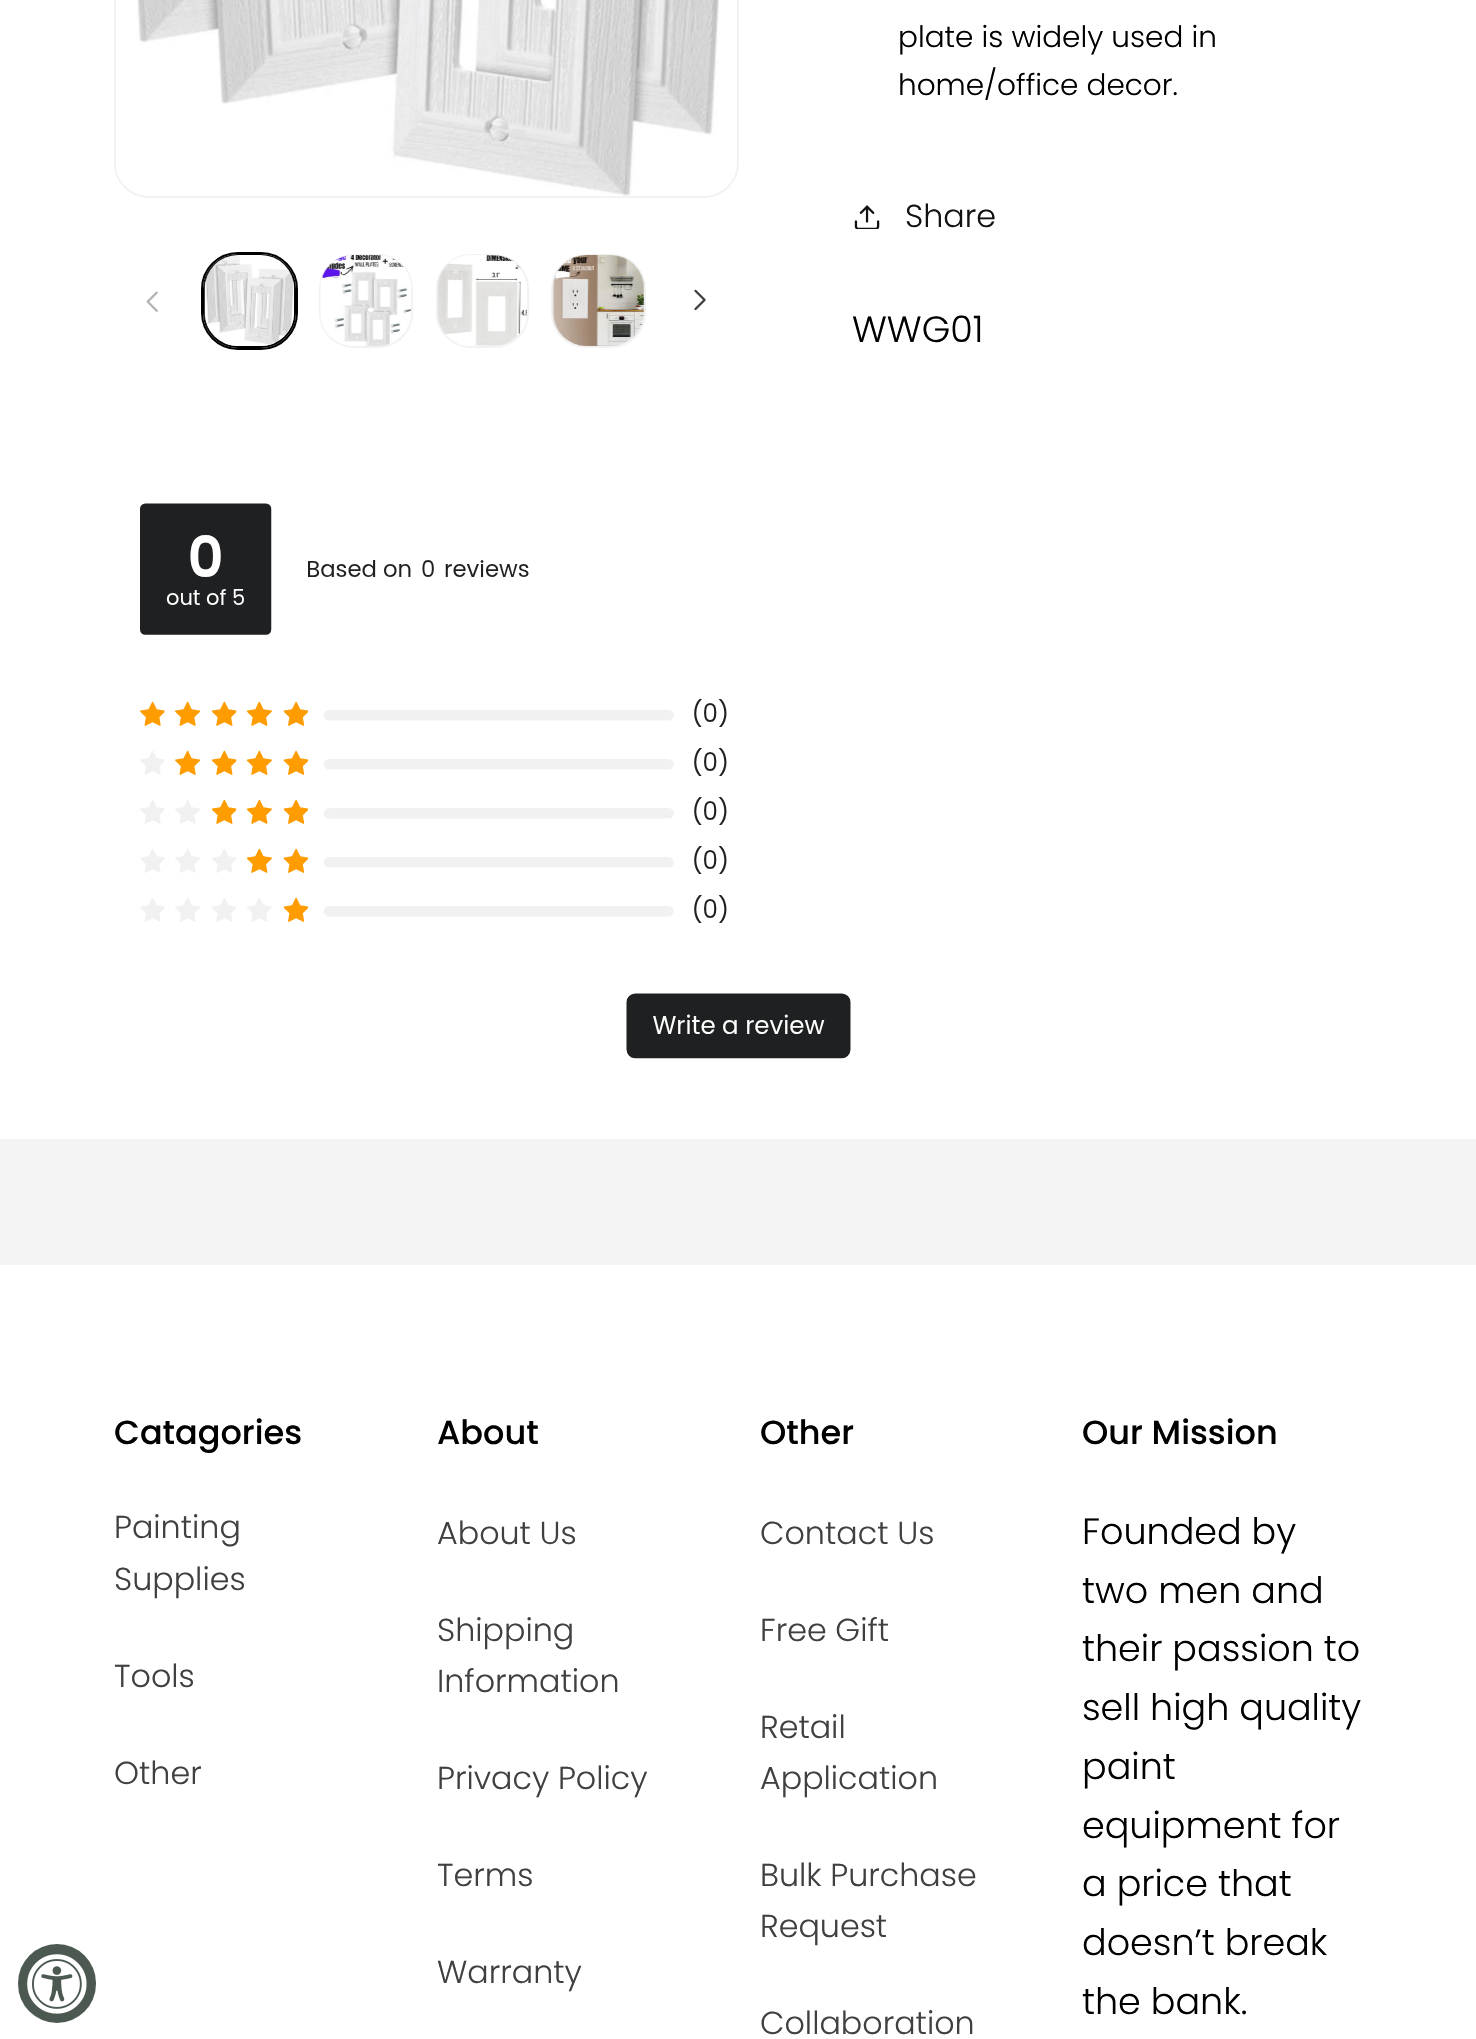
void draw(SkCanvas* canvas) {
	SkPaint fill;
	fill.setAntiAlias(true);
	auto makeFont = [&](const char* family, int weight, float size, bool italic = false) {
		SkFontStyle style(weight, SkFontStyle::kNormal_Width,
			italic ? SkFontStyle::kItalic_Slant : SkFontStyle::kUpright_Slant);
		SkFont result(fontMgr->matchFamilyStyle(family, style), size);
		result.setSubpixel(true);
		return result;
	};
	auto text = [&](const char* s, float x, float y, const SkFont& font) {
		canvas->drawString(s, x, y, font, fill);
	};
	auto box = [&](float l, float t, float r, float b) {
		canvas->drawRect(SkRect::MakeLTRB(l, t, r, b), fill);
	};
	auto roundBox = [&](float l, float t, float r, float b, float radius) {
		canvas->drawRoundRect(SkRect::MakeLTRB(l, t, r, b), radius, radius, fill);
	};
	auto picture = [&](const char* path, float l, float t, float r, float b) {
		auto image = SkImages::DeferredFromEncodedData(SkData::MakeFromFileName(path));
		canvas->drawImageRect(image, SkRect::MakeLTRB(l, t, r, b), SkSamplingOptions());
	};
	canvas->clear(0xFFFFFFFF);
	fill.setStyle(SkPaint::kStroke_Style);
	fill.setStrokeWidth(2);
	fill.setColor(0xFFF2F2F2);
	canvas->drawRoundRect(SkRect::MakeLTRB(115, -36, 738, 197), 34, 34, fill);
	picture("image0.png", 116, 0, 719, 196);
	picture("image1.png", 146, 291, 158, 312);
	fill.setColor(0xFF000000);
	canvas->drawRoundRect(SkRect::MakeLTRB(202, 253, 297, 349), 36, 36, fill);
	canvas->drawRoundRect(SkRect::MakeLTRB(204, 255, 295, 347), 34, 34, fill);
	picture("image2.png", 204, 255, 295, 346);
	fill.setColor(0xFFF2F2F2);
	canvas->drawRoundRect(SkRect::MakeLTRB(320, 255, 412, 347), 34, 34, fill);
	picture("image3.png", 320, 255, 412, 346);
	canvas->drawRoundRect(SkRect::MakeLTRB(437, 255, 528, 347), 34, 34, fill);
	picture("image4.png", 437, 255, 527, 346);
	canvas->drawRoundRect(SkRect::MakeLTRB(552, 255, 645, 347), 34, 34, fill);
	picture("image5.png", 552, 255, 645, 346);
	picture("image6.png", 694, 289, 706, 311);
	picture("image7.png", 854, 205, 880, 229);
	picture("image8.png", 140, 503, 851, 1059);
	fill.setStyle(SkPaint::kFill_Style);
	fill.setColor(0xFFF4F4F4);
	box(0, 1139, 1476, 1265);
	fill.setColor(0xFF4C5950);
	roundBox(18, 1944, 96, 2023, 39);
	picture("image9.png", 27, 1954, 87, 2014);
	auto font1 = makeFont("Poppins", 300, 29.5f);
	fill.setColor(0xFF000000);
	text("plate is widely used in", 898, 47, font1);
	text("home/office decor.", 898, 95, font1);
	auto font2 = makeFont("Poppins", 300, 31.75f);
	fill.setColor(0xFF121212);
	text("Share", 905, 227, font2);
	auto font3 = makeFont("Poppins", 300, 36.5f);
	fill.setColor(0xFF000000);
	text("WWG01", 852, 342, font3);
	auto font4 = makeFont("Poppins", 500, 33.5f);
	text("Catagories", 114, 1444, font4);
	fill.setColor(0xFF404040);
	text("Painting", 114, 1538, font2);
	text("Supplies", 114, 1590, font2);
	text("Tools", 114, 1687, font2);
	text("Other", 114, 1784, font2);
	fill.setColor(0xFF000000);
	text("About", 437, 1444, font4);
	fill.setColor(0xFF404040);
	text("About Us", 437, 1544, font2);
	text("Shipping", 437, 1641, font2);
	text("Information", 437, 1692, font2);
	text("Privacy Policy", 437, 1789, font2);
	text("Terms", 437, 1886, font2);
	text("Warranty", 437, 1983, font2);
	fill.setColor(0xFF000000);
	text("Other", 760, 1444, font4);
	fill.setColor(0xFF404040);
	text("Contact Us", 760, 1544, font2);
	text("Free Gift", 760, 1641, font2);
	text("Retail", 760, 1738, font2);
	text("Application", 760, 1789, font2);
	text("Bulk Purchase", 760, 1886, font2);
	text("Request", 760, 1937, font2);
	text("Collaboration", 760, 2034, font2);
	fill.setColor(0xFF000000);
	text("Our Mission", 1082, 1444, font4);
	text("Founded by", 1082, 1544, font3);
	text("two men and", 1082, 1603, font3);
	text("their passion to", 1082, 1661, font3);
	text("sell high quality", 1082, 1720, font3);
	text("paint", 1082, 1779, font3);
	text("equipment for", 1082, 1838, font3);
	text("a price that", 1082, 1896, font3);
	text("doesn’t break", 1082, 1955, font3);
	text("the bank.", 1082, 2014, font3);
}
